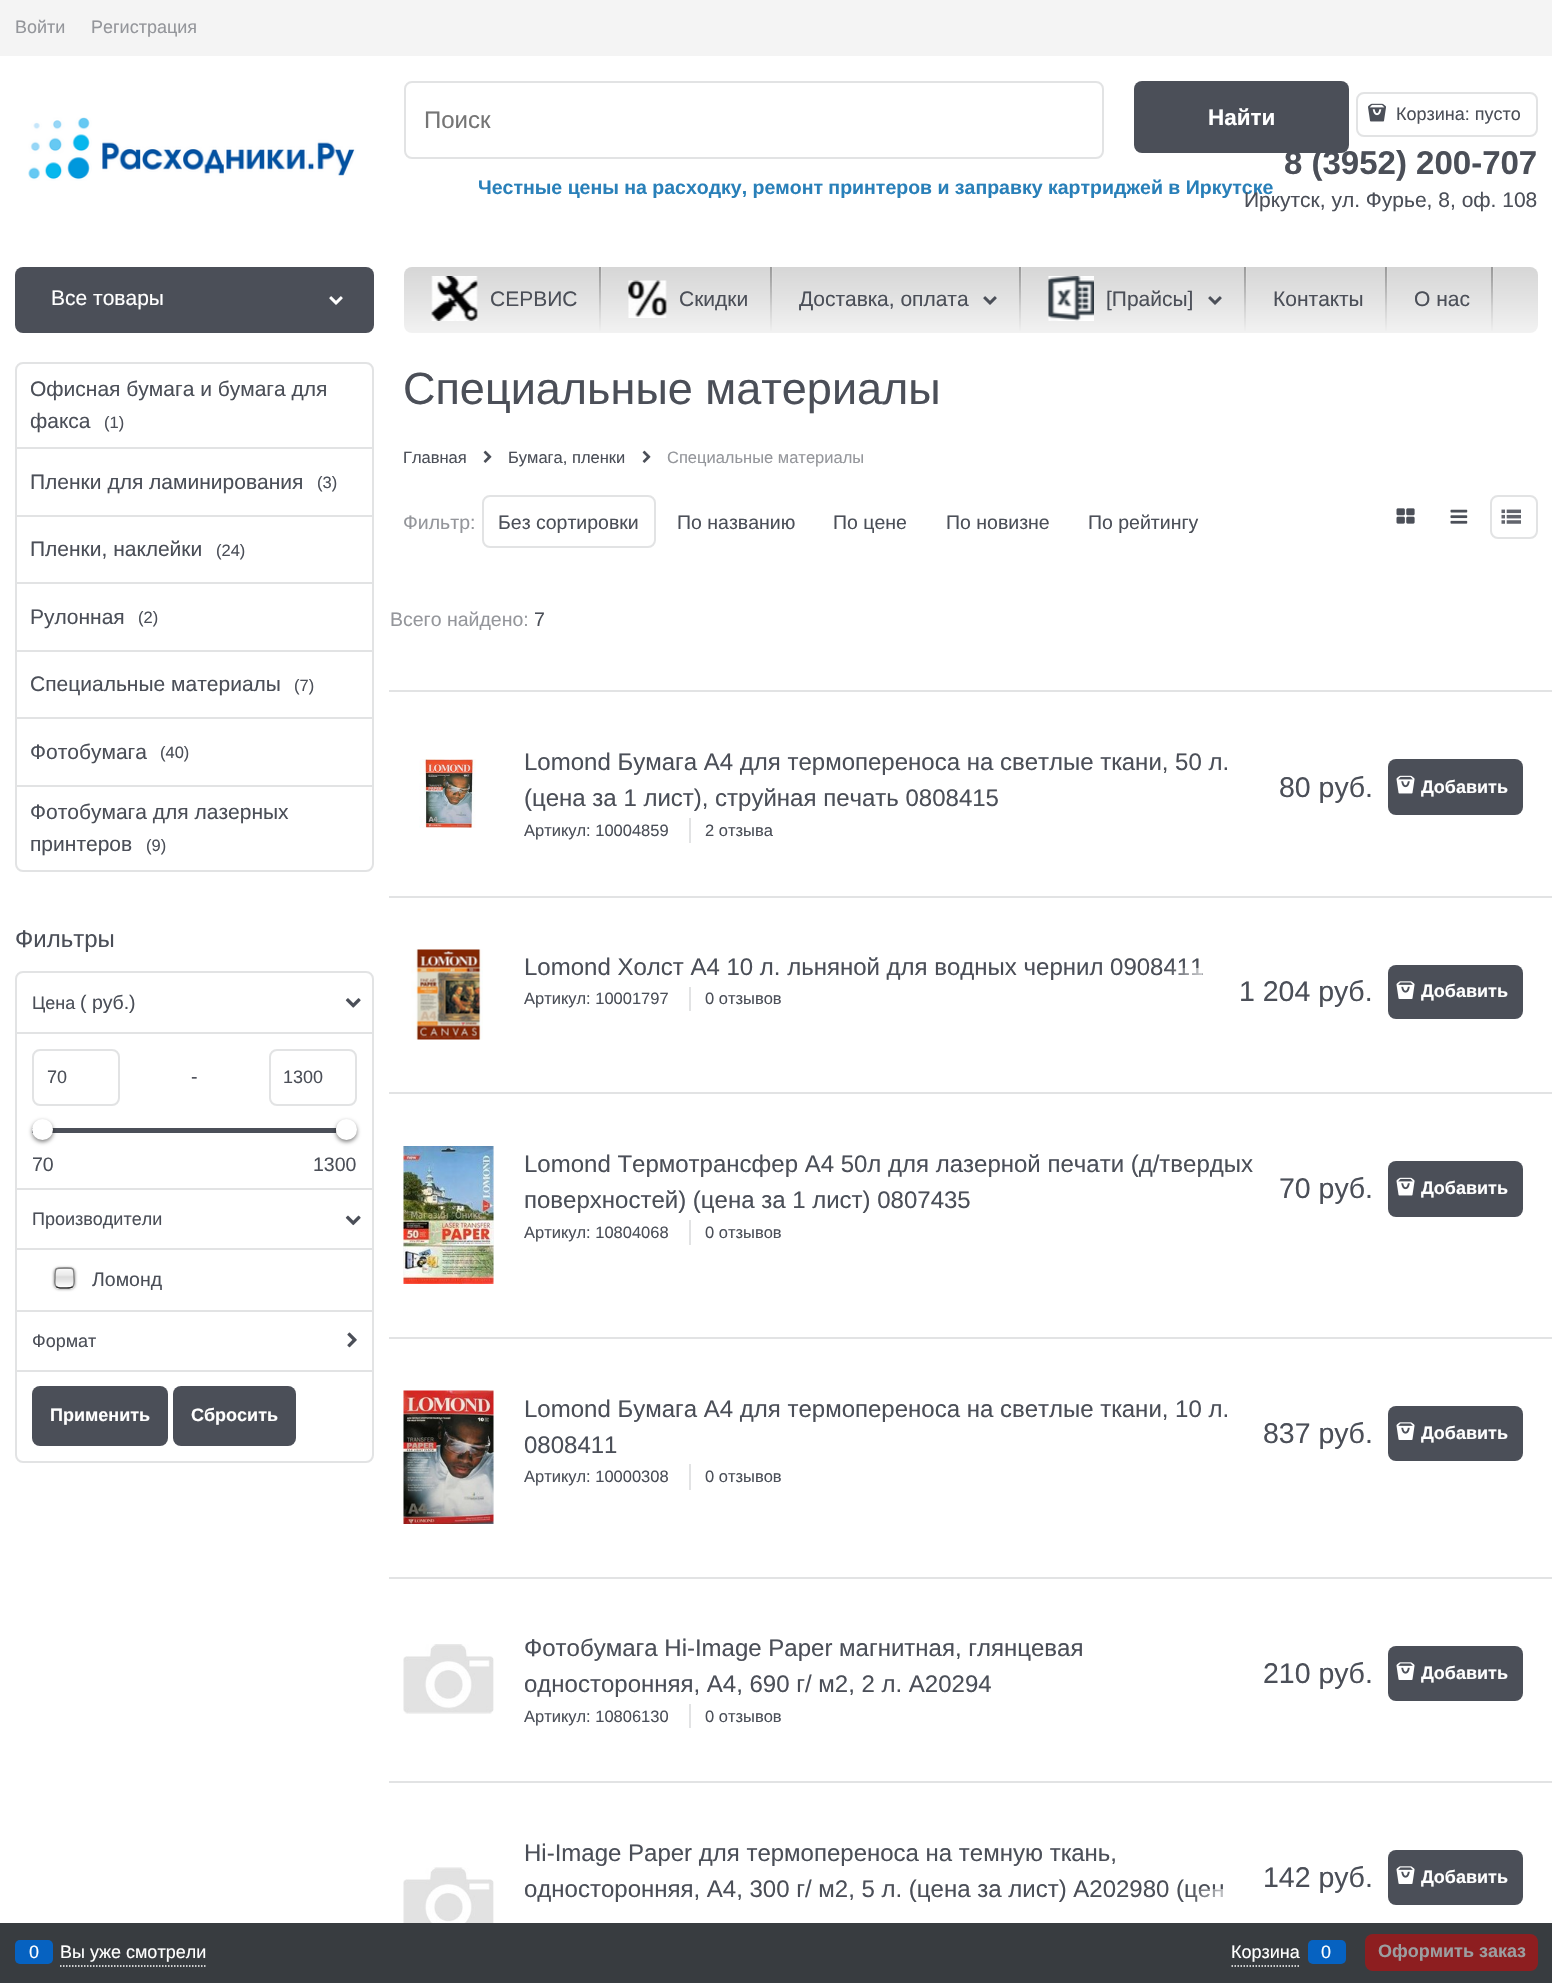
void draw(SkCanvas* canvas) {
	SkPaint fill;
	fill.setAntiAlias(true);
	auto makeFont = [&](const char* family, int weight, float size, bool italic = false) {
		SkFontStyle style(weight, SkFontStyle::kNormal_Width,
			italic ? SkFontStyle::kItalic_Slant : SkFontStyle::kUpright_Slant);
		SkFont result(fontMgr->matchFamilyStyle(family, style), size);
		result.setSubpixel(true);
		return result;
	};
	auto text = [&](const char* s, float x, float y, const SkFont& font) {
		canvas->drawString(s, x, y, font, fill);
	};
	auto box = [&](float l, float t, float r, float b) {
		canvas->drawRect(SkRect::MakeLTRB(l, t, r, b), fill);
	};
	auto roundBox = [&](float l, float t, float r, float b, float radius) {
		canvas->drawRoundRect(SkRect::MakeLTRB(l, t, r, b), radius, radius, fill);
	};
	auto picture = [&](const char* path, float l, float t, float r, float b) {
		auto image = SkImages::DeferredFromEncodedData(SkData::MakeFromFileName(path));
		canvas->drawImageRect(image, SkRect::MakeLTRB(l, t, r, b), SkSamplingOptions());
	};
	canvas->clear(0xFFFFFFFF);
	fill.setColor(0xFFF4F4F4);
	box(0, 0, 1552, 56);
	picture("image0.png", 28, 117, 356, 181);
	fill.setStyle(SkPaint::kStroke_Style);
	fill.setStrokeWidth(2);
	fill.setColor(0xFFE2E3E4);
	canvas->drawRoundRect(SkRect::MakeLTRB(405, 82, 1103, 158), 7, 7, fill);
	fill.setStyle(SkPaint::kFill_Style);
	fill.setColor(0xFF4B4F58);
	roundBox(1134, 81, 1349, 153, 8);
	fill.setStyle(SkPaint::kStroke_Style);
	fill.setColor(0xFFE2E3E4);
	canvas->drawRoundRect(SkRect::MakeLTRB(1357, 93, 1537, 136), 7, 7, fill);
	picture("image1.png", 1368, 103, 1386, 122);
	fill.setStyle(SkPaint::kFill_Style);
	fill.setColor(0xFF4B4F58);
	roundBox(15, 267, 374, 333, 8);
	picture("image2.png", 329, 296, 343, 305);
	{
		const SkColor colors[] = {0xFFD6D6D6, 0xFFE3E3E3, 0xFFF2F2F2};
		const float stops[] = {0, 0.5f, 1};
		const SkPoint ends[] = {{971, 267}, {971, 333}};
		fill.setShader(SkGradientShader::MakeLinear(ends, colors, stops, 3, SkTileMode::kClamp));
		fill.setAlpha(255);
	}
	roundBox(404, 267, 1538, 333, 8);
	picture("image3.png", 431, 276, 478, 321);
	{
		const SkColor colors[] = {0x24FFFFFF, 0x05FFFFFF, 0x00FFFFFF};
		const float stops[] = {0, 0.72f, 1};
		const SkPoint ends[] = {{601, 267}, {601, 333}};
		fill.setShader(SkGradientShader::MakeLinear(ends, colors, stops, 3, SkTileMode::kClamp));
		fill.setAlpha(255);
	}
	box(600, 267, 602, 291);
	{
		const SkColor colors[] = {0x63393939, 0x54393939, 0x1F393939, 0x03393939, 0x03FFFFFF, 0x00FFFFFF};
		const float stops[] = {0, 0.17f, 0.61f, 0.96f, 0.98f, 1};
		const SkPoint ends[] = {{599, 267}, {599, 333}};
		fill.setShader(SkGradientShader::MakeLinear(ends, colors, stops, 6, SkTileMode::kClamp));
		fill.setAlpha(255);
	}
	box(599, 267, 601, 333);
	picture("image4.png", 628, 280, 667, 318);
	{
		const SkColor colors[] = {0x24FFFFFF, 0x05FFFFFF, 0x00FFFFFF};
		const float stops[] = {0, 0.72f, 1};
		const SkPoint ends[] = {{772, 267}, {772, 333}};
		fill.setShader(SkGradientShader::MakeLinear(ends, colors, stops, 3, SkTileMode::kClamp));
		fill.setAlpha(255);
	}
	box(771, 267, 773, 291);
	{
		const SkColor colors[] = {0x63393939, 0x54393939, 0x1F393939, 0x03393939, 0x03FFFFFF, 0x00FFFFFF};
		const float stops[] = {0, 0.17f, 0.61f, 0.96f, 0.98f, 1};
		const SkPoint ends[] = {{770, 267}, {770, 333}};
		fill.setShader(SkGradientShader::MakeLinear(ends, colors, stops, 6, SkTileMode::kClamp));
		fill.setAlpha(255);
	}
	box(770, 267, 772, 333);
	picture("image5.png", 983, 296, 997, 305);
	{
		const SkColor colors[] = {0x24FFFFFF, 0x05FFFFFF, 0x00FFFFFF};
		const float stops[] = {0, 0.72f, 1};
		const SkPoint ends[] = {{1021, 267}, {1021, 333}};
		fill.setShader(SkGradientShader::MakeLinear(ends, colors, stops, 3, SkTileMode::kClamp));
		fill.setAlpha(255);
	}
	box(1020, 267, 1022, 291);
	{
		const SkColor colors[] = {0x63393939, 0x54393939, 0x1F393939, 0x03393939, 0x03FFFFFF, 0x00FFFFFF};
		const float stops[] = {0, 0.17f, 0.61f, 0.96f, 0.98f, 1};
		const SkPoint ends[] = {{1019, 267}, {1019, 333}};
		fill.setShader(SkGradientShader::MakeLinear(ends, colors, stops, 6, SkTileMode::kClamp));
		fill.setAlpha(255);
	}
	box(1019, 267, 1021, 333);
	picture("image6.png", 1048, 276, 1094, 321);
	picture("image5.png", 1208, 296, 1222, 305);
	{
		const SkColor colors[] = {0x24FFFFFF, 0x05FFFFFF, 0x00FFFFFF};
		const float stops[] = {0, 0.72f, 1};
		const SkPoint ends[] = {{1246, 267}, {1246, 333}};
		fill.setShader(SkGradientShader::MakeLinear(ends, colors, stops, 3, SkTileMode::kClamp));
		fill.setAlpha(255);
	}
	box(1245, 267, 1247, 291);
	{
		const SkColor colors[] = {0x63393939, 0x54393939, 0x1F393939, 0x03393939, 0x03FFFFFF, 0x00FFFFFF};
		const float stops[] = {0, 0.17f, 0.61f, 0.96f, 0.98f, 1};
		const SkPoint ends[] = {{1244, 267}, {1244, 333}};
		fill.setShader(SkGradientShader::MakeLinear(ends, colors, stops, 6, SkTileMode::kClamp));
		fill.setAlpha(255);
	}
	box(1244, 267, 1246, 333);
	{
		const SkColor colors[] = {0x24FFFFFF, 0x05FFFFFF, 0x00FFFFFF};
		const float stops[] = {0, 0.72f, 1};
		const SkPoint ends[] = {{1387, 267}, {1387, 333}};
		fill.setShader(SkGradientShader::MakeLinear(ends, colors, stops, 3, SkTileMode::kClamp));
		fill.setAlpha(255);
	}
	box(1386, 267, 1388, 291);
	{
		const SkColor colors[] = {0x63393939, 0x54393939, 0x1F393939, 0x03393939, 0x03FFFFFF, 0x00FFFFFF};
		const float stops[] = {0, 0.17f, 0.61f, 0.96f, 0.98f, 1};
		const SkPoint ends[] = {{1385, 267}, {1385, 333}};
		fill.setShader(SkGradientShader::MakeLinear(ends, colors, stops, 6, SkTileMode::kClamp));
		fill.setAlpha(255);
	}
	box(1385, 267, 1387, 333);
	{
		const SkColor colors[] = {0x24FFFFFF, 0x05FFFFFF, 0x00FFFFFF};
		const float stops[] = {0, 0.72f, 1};
		const SkPoint ends[] = {{1493, 267}, {1493, 333}};
		fill.setShader(SkGradientShader::MakeLinear(ends, colors, stops, 3, SkTileMode::kClamp));
		fill.setAlpha(255);
	}
	box(1493, 267, 1494, 291);
	{
		const SkColor colors[] = {0x63393939, 0x54393939, 0x1F393939, 0x03393939, 0x03FFFFFF, 0x00FFFFFF};
		const float stops[] = {0, 0.17f, 0.61f, 0.96f, 0.98f, 1};
		const SkPoint ends[] = {{1492, 267}, {1492, 333}};
		fill.setShader(SkGradientShader::MakeLinear(ends, colors, stops, 6, SkTileMode::kClamp));
		fill.setAlpha(255);
	}
	box(1491, 267, 1493, 333);
	fill.setStyle(SkPaint::kStroke_Style);
	fill.setShader(nullptr);
	fill.setColor(0xFFE2E3E4);
	canvas->drawRoundRect(SkRect::MakeLTRB(16, 363, 373, 871), 7, 7, fill);
	fill.setStyle(SkPaint::kFill_Style);
	box(17, 447, 372, 449);
	box(17, 515, 372, 517);
	box(17, 582, 372, 584);
	box(17, 650, 372, 652);
	box(17, 717, 372, 719);
	box(17, 785, 372, 787);
	fill.setStyle(SkPaint::kStroke_Style);
	canvas->drawRoundRect(SkRect::MakeLTRB(16, 972, 373, 1462), 7, 7, fill);
	picture("image7.png", 345, 998, 361, 1008);
	fill.setStyle(SkPaint::kFill_Style);
	box(17, 1032, 372, 1034);
	fill.setStyle(SkPaint::kStroke_Style);
	canvas->drawRoundRect(SkRect::MakeLTRB(33, 1050, 119, 1105), 7, 7, fill);
	canvas->drawRoundRect(SkRect::MakeLTRB(270, 1050, 356, 1105), 7, 7, fill);
	fill.setStyle(SkPaint::kFill_Style);
	fill.setColor(0xFF4B4F58);
	box(32, 1128, 336, 1133);
	fill.setColor(0x80000000);
	fill.setMaskFilter(SkMaskFilter::MakeBlur(kNormal_SkBlurStyle, 2));
	canvas->drawRoundRect(SkRect::MakeLTRB(32, 1121, 53, 1142), 10.5f, 10.5f, fill);
	fill.setMaskFilter(nullptr);
	fill.setColor(0xFFFFFFFF);
	canvas->drawCircle(42.5f, 1129.5f, 10.5f, fill);
	fill.setColor(0x80000000);
	fill.setMaskFilter(SkMaskFilter::MakeBlur(kNormal_SkBlurStyle, 2));
	canvas->drawRoundRect(SkRect::MakeLTRB(336, 1121, 357, 1142), 10.5f, 10.5f, fill);
	fill.setMaskFilter(nullptr);
	fill.setColor(0xFFFFFFFF);
	canvas->drawCircle(346.5f, 1129.5f, 10.5f, fill);
	fill.setColor(0xFFE2E3E4);
	box(17, 1188, 372, 1190);
	picture("image8.png", 345, 1215, 361, 1226);
	box(17, 1248, 372, 1250);
	fill.setColor(0xFF818181);
	fill.setMaskFilter(SkMaskFilter::MakeBlur(kNormal_SkBlurStyle, 1.5f));
	canvas->drawRoundRect(SkRect::MakeLTRB(54, 1268, 75, 1289), 5, 5, fill);
	fill.setMaskFilter(nullptr);
	canvas->save();
	canvas->clipPath(SkPathBuilder().moveTo(59, 1268).lineTo(70, 1268).cubicTo(73, 1268, 75, 1270, 75, 1273).lineTo(75, 1284).cubicTo(75, 1287, 73, 1289, 70, 1289).lineTo(59, 1289).cubicTo(56, 1289, 54, 1287, 54, 1284).lineTo(54, 1273).cubicTo(54, 1270, 56, 1268, 59, 1268).close().detach(), true);
	{
		const SkColor colors[] = {0xFFFDFDFD, 0xFFF3F3F3, 0xFFEBEBEB, 0xFFDCDCDC, 0xFFE6E6E6, 0xFFF0F0F0, 0xFFF6F6F6, 0xFFFFFFFF};
		const float stops[] = {0, 0.11f, 0.33f, 0.44f, 0.67f, 0.78f, 0.89f, 1};
		const SkPoint ends[] = {{65, 1269}, {65, 1287}};
		fill.setShader(SkGradientShader::MakeLinear(ends, colors, stops, 8, SkTileMode::kClamp));
		fill.setAlpha(255);
	}
	box(54, 1269, 75, 1287);
	{
		const SkColor colors[] = {0xFFFDFDFD, 0xFFF3F3F3, 0xFFEBEBEB, 0xFFDCDCDC, 0xFFE6E6E6, 0xFFF0F0F0, 0xFFF6F6F6, 0xFFFFFFFF};
		const float stops[] = {0, 0.11f, 0.33f, 0.44f, 0.67f, 0.78f, 0.89f, 1};
		const SkPoint ends[] = {{65, 1287}, {65, 1305}};
		fill.setShader(SkGradientShader::MakeLinear(ends, colors, stops, 8, SkTileMode::kClamp));
		fill.setAlpha(255);
	}
	box(54, 1287, 75, 1289);
	canvas->restore();
	fill.setStyle(SkPaint::kStroke_Style);
	fill.setStrokeWidth(1.5f);
	fill.setShader(nullptr);
	fill.setColor(0xFF2D2D2D);
	canvas->drawPath(SkPathBuilder().moveTo(73, 1286.5f).cubicTo(71, 1288.5f, 67, 1288, 64.5f, 1288).cubicTo(62, 1288, 58, 1288.5f, 56, 1286.5f).detach(), fill);
	fill.setColor(0xFF818181);
	canvas->drawPath(SkPathBuilder().moveTo(56, 1286.5f).cubicTo(54, 1284.5f, 55, 1280.5f, 55, 1278).cubicTo(55, 1268, 54.5f, 1268, 64.5f, 1268).cubicTo(73, 1268, 74, 1267, 74, 1276).cubicTo(74, 1278.5f, 75, 1284.5f, 73, 1286.5f).detach(), fill);
	fill.setStyle(SkPaint::kFill_Style);
	fill.setColor(0xFFE2E3E4);
	box(17, 1310, 372, 1312);
	picture("image9.png", 347, 1332, 357, 1348);
	box(17, 1370, 372, 1372);
	fill.setColor(0xFF4B4F58);
	roundBox(32, 1386, 168, 1446, 8);
	roundBox(173, 1386, 296, 1446, 8);
	picture("image10.png", 483, 450, 492, 463);
	picture("image10.png", 642, 450, 651, 463);
	fill.setStyle(SkPaint::kStroke_Style);
	fill.setStrokeWidth(2);
	fill.setColor(0xFFE2E3E4);
	canvas->drawRoundRect(SkRect::MakeLTRB(483, 496, 655, 547), 7, 7, fill);
	picture("image11.png", 1396, 508, 1415, 524);
	picture("image12.png", 1450, 509, 1468, 524);
	canvas->drawRoundRect(SkRect::MakeLTRB(1491, 496, 1537, 538), 7, 7, fill);
	picture("image13.png", 1501, 509, 1521, 524);
	fill.setStyle(SkPaint::kFill_Style);
	box(389, 690, 1552, 692);
	box(389, 896, 1552, 898);
	picture("image14.png", 419, 759, 476, 828);
	box(689, 818, 691, 843);
	fill.setColor(0xFF4B4F58);
	roundBox(1388, 759, 1523, 815, 8);
	picture("image15.png", 1396, 775, 1415, 794);
	fill.setColor(0xFFE2E3E4);
	box(389, 1092, 1552, 1094);
	picture("image16.png", 411, 949, 483, 1040);
	box(689, 987, 691, 1011);
	fill.setColor(0xFF4B4F58);
	roundBox(1388, 965, 1523, 1019, 8);
	picture("image17.png", 1396, 981, 1415, 999);
	fill.setColor(0xFFE2E3E4);
	box(389, 1337, 1552, 1339);
	picture("image18.png", 403, 1146, 494, 1284);
	box(689, 1220, 691, 1245);
	fill.setColor(0xFF4B4F58);
	roundBox(1388, 1161, 1523, 1217, 8);
	picture("image15.png", 1396, 1177, 1415, 1196);
	fill.setColor(0xFFE2E3E4);
	box(389, 1577, 1552, 1579);
	picture("image19.png", 403, 1390, 494, 1524);
	box(689, 1464, 691, 1490);
	fill.setColor(0xFF4B4F58);
	roundBox(1388, 1406, 1523, 1461, 8);
	picture("image17.png", 1396, 1422, 1415, 1440);
	fill.setColor(0xFFE2E3E4);
	box(389, 1781, 1552, 1783);
	picture("image20.png", 403, 1644, 494, 1714);
	box(689, 1704, 691, 1728);
	fill.setColor(0xFF4B4F58);
	roundBox(1388, 1646, 1523, 1701, 8);
	picture("image17.png", 1396, 1662, 1415, 1680);
	picture("image21.png", 403, 1867, 494, 1923);
	roundBox(1388, 1850, 1523, 1905, 8);
	picture("image17.png", 1396, 1866, 1415, 1884);
	fill.setColor(0xFF383C40);
	box(0, 1923, 1552, 1983);
	fill.setStyle(SkPaint::kStroke_Style);
	fill.setStrokeWidth(1.5f);
	fill.setColor(0xFFFFFFFF);
	fill.setPathEffect(SkDashPathEffect::Make({{1.5f, 1.5f}}, 0));
	canvas->drawPath(SkPathBuilder().moveTo(60, 1966).lineTo(205.5f, 1966).detach(), fill);
	fill.setPathEffect(nullptr);
	fill.setStyle(SkPaint::kFill_Style);
	fill.setColor(0xFF0662C1);
	roundBox(15, 1940, 53, 1964, 5);
	fill.setStyle(SkPaint::kStroke_Style);
	fill.setColor(0xFFFFFFFF);
	fill.setPathEffect(SkDashPathEffect::Make({{1.5f, 1.5f}}, 0));
	canvas->drawPath(SkPathBuilder().moveTo(1231.5f, 1966).lineTo(1300.5f, 1966).detach(), fill);
	fill.setPathEffect(nullptr);
	fill.setStyle(SkPaint::kFill_Style);
	fill.setColor(0xFF0662C1);
	roundBox(1308, 1940, 1346, 1964, 5);
	fill.setColor(0xFF8D1E20);
	roundBox(1365, 1934, 1538, 1971, 8);
	auto font1 = makeFont("Liberation Sans", 400, 18);
	fill.setColor(0xFF94969B);
	text("Войти", 15, 33, font1);
	text("Регистрация", 91, 33, font1);
	auto font2 = makeFont("Liberation Sans", 400, 24);
	fill.setColor(0xFF757575);
	text("Поиск", 424, 128, font2);
	auto font3 = makeFont("Liberation Sans", 700, 22.5f);
	fill.setColor(0xFFFFFFFF);
	text("Найти", 1208, 125, font3);
	auto font4 = makeFont("Liberation Sans", 700, 19.5f);
	fill.setColor(0xFF2980B9);
	text("Честные цены на расходку, ремонт принтеров и заправку картриджей в Иркутске", 478, 194, font4);
	fill.setColor(0xFF4B4F58);
	text("Корзина: пусто", 1396, 120, font1);
	auto font5 = makeFont("Liberation Sans", 700, 33);
	text("8 (3952) 200-707", 1284, 174, font5);
	auto font6 = makeFont("Liberation Sans", 400, 21);
	text("Иркутск, ул. Фурье, 8, оф. 108", 1244, 207, font6);
	fill.setColor(0xFFFFFFFF);
	text("Все товары", 51, 305, font6);
	fill.setColor(0xFF4B4F58);
	text("СЕРВИС", 490, 306, font6);
	text("Скидки", 679, 306, font6);
	text("Доставка, оплата", 799, 306, font6);
	text("[Прайсы]", 1106, 306, font6);
	text("Контакты", 1273, 306, font6);
	text("О нас", 1414, 306, font6);
	text("Офисная бумага и бумага для", 30, 396, font6);
	text("факса", 30, 428, font6);
	auto font7 = makeFont("Liberation Sans", 400, 16.5f);
	text("(1)", 104, 428, font7);
	text("Пленки для ламинирования", 30, 489, font6);
	text("(3)", 317, 488, font7);
	text("Пленки, наклейки", 30, 556, font6);
	text("(24)", 216, 556, font7);
	text("Рулонная", 30, 624, font6);
	text("(2)", 138, 623, font7);
	text("Специальные материалы", 30, 691, font6);
	text("(7)", 294, 691, font7);
	text("Фотобумага", 30, 759, font6);
	text("(40)", 160, 758, font7);
	text("Фотобумага для лазерных", 30, 819, font6);
	text("принтеров", 30, 851, font6);
	text("(9)", 146, 851, font7);
	text("Фильтры", 15, 947, font2);
	text("Цена", 32, 1009, font1);
	auto font8 = makeFont("Liberation Sans", 400, 19.5f);
	text("( руб.)", 80, 1009, font8);
	text("70", 47, 1083, font1);
	text("-", 191, 1083, font8);
	text("1300", 283, 1083, font1);
	text("70", 32, 1171, font8);
	text("1300", 313, 1171, font8);
	text("Производители", 32, 1225, font1);
	text("Ломонд", 92, 1286, font8);
	text("Формат", 32, 1347, font1);
	auto font9 = makeFont("Liberation Sans", 700, 18);
	fill.setColor(0xFFFFFFFF);
	text("Применить", 50, 1421, font9);
	text("Сбросить", 191, 1421, font9);
	auto font10 = makeFont("Liberation Sans", 400, 45);
	fill.setColor(0xFF4B4F58);
	text("Специальные материалы", 403, 404, font10);
	text("Главная", 403, 463, font7);
	text("Бумага, пленки", 508, 463, font7);
	fill.setColor(0xFF94969B);
	text("Специальные материалы", 667, 463, font7);
	text("Фильтр:", 403, 529, font8);
	fill.setColor(0xFF4B4F58);
	text("Без сортировки", 498, 529, font8);
	text("По названию", 677, 529, font8);
	text("По цене", 833, 529, font8);
	text("По новизне", 946, 529, font8);
	text("По рейтингу", 1088, 529, font8);
	fill.setColor(0xFF94969B);
	text("Всего найдено:", 390, 626, font8);
	fill.setColor(0xFF4B4F58);
	text("7", 534, 626, font8);
	text("Lomond Бумага А4 для термопереноса на светлые ткани, 50 л.", 524, 770, font2);
	text("(цена за 1 лист), струйная печать 0808415", 524, 806, font2);
	text("Артикул: 10004859", 524, 836, font7);
	text("2 отзыва", 705, 836, font7);
	auto font11 = makeFont("Liberation Sans", 400, 28.5f);
	text("80 руб.", 1279, 797, font11);
	fill.setColor(0xFFFFFFFF);
	text("Добавить", 1421, 793, font9);
	fill.setColor(0xFF4B4F58);
	text("Lomond Холст А4 10 л. льняной для водных чернил 0908411", 524, 975, font2);
	{
		const SkColor colors[] = {0x00FFFFFF, 0xFFFFFFFF};
		const float stops[] = {0, 0.7f};
		const SkPoint ends[] = {{1167, 977}, {1239, 977}};
		fill.setShader(SkGradientShader::MakeLinear(ends, colors, stops, 2, SkTileMode::kClamp));
		fill.setAlpha(255);
	}
	box(1168, 968, 1202, 975);
	fill.setShader(nullptr);
	fill.setColor(0xFF4B4F58);
	text("Артикул: 10001797", 524, 1004, font7);
	text("0 отзывов", 705, 1004, font7);
	text("1 204 руб.", 1239, 1001, font11);
	fill.setColor(0xFFFFFFFF);
	text("Добавить", 1421, 997, font9);
	fill.setColor(0xFF4B4F58);
	text("Lomond Термотрансфер A4 50л для лазерной печати (д/твердых", 524, 1172, font2);
	text("поверхностей) (цена за 1 лист) 0807435", 524, 1208, font2);
	text("Артикул: 10804068", 524, 1238, font7);
	text("0 отзывов", 705, 1238, font7);
	text("70 руб.", 1279, 1198, font11);
	fill.setColor(0xFFFFFFFF);
	text("Добавить", 1421, 1194, font9);
	fill.setColor(0xFF4B4F58);
	text("Lomond Бумага А4 для термопереноса на светлые ткани, 10 л.", 524, 1417, font2);
	text("0808411", 524, 1453, font2);
	text("Артикул: 10000308", 524, 1482, font7);
	text("0 отзывов", 705, 1482, font7);
	text("837 руб.", 1263, 1443, font11);
	fill.setColor(0xFFFFFFFF);
	text("Добавить", 1421, 1439, font9);
	fill.setColor(0xFF4B4F58);
	text("Фотобумага Hi-Image Paper магнитная, глянцевая", 524, 1656, font2);
	text("односторонняя, A4, 690 г/ м2, 2 л. A20294", 524, 1692, font2);
	text("Артикул: 10806130", 524, 1722, font7);
	text("0 отзывов", 705, 1722, font7);
	text("210 руб.", 1263, 1683, font11);
	fill.setColor(0xFFFFFFFF);
	text("Добавить", 1421, 1679, font9);
	fill.setColor(0xFF4B4F58);
	text("Hi-Image Paper для термопереноса на темную ткань,", 524, 1861, font2);
	text("односторонняя, A4, 300 г/ м2, 5 л. (цена за лист) A202980 (цен", 524, 1897, font2);
	{
		const SkColor colors[] = {0x00FFFFFF, 0xFFFFFFFF};
		const float stops[] = {0, 0.7f};
		const SkPoint ends[] = {{1190, 1916}, {1263, 1916}};
		fill.setShader(SkGradientShader::MakeLinear(ends, colors, stops, 2, SkTileMode::kClamp));
		fill.setAlpha(255);
	}
	box(1191, 1889, 1223, 1902);
	fill.setShader(nullptr);
	fill.setColor(0xFF4B4F58);
	text("142 руб.", 1263, 1887, font11);
	fill.setColor(0xFFFFFFFF);
	text("Добавить", 1421, 1883, font9);
	text("0", 29, 1958, font1);
	text("Вы уже смотрели", 60, 1958, font1);
	text("Корзина", 1231, 1958, font1);
	text("0", 1321, 1958, font1);
	fill.setColor(0xFF9C9EA0);
	text("Оформить заказ", 1378, 1957, font9);
}
